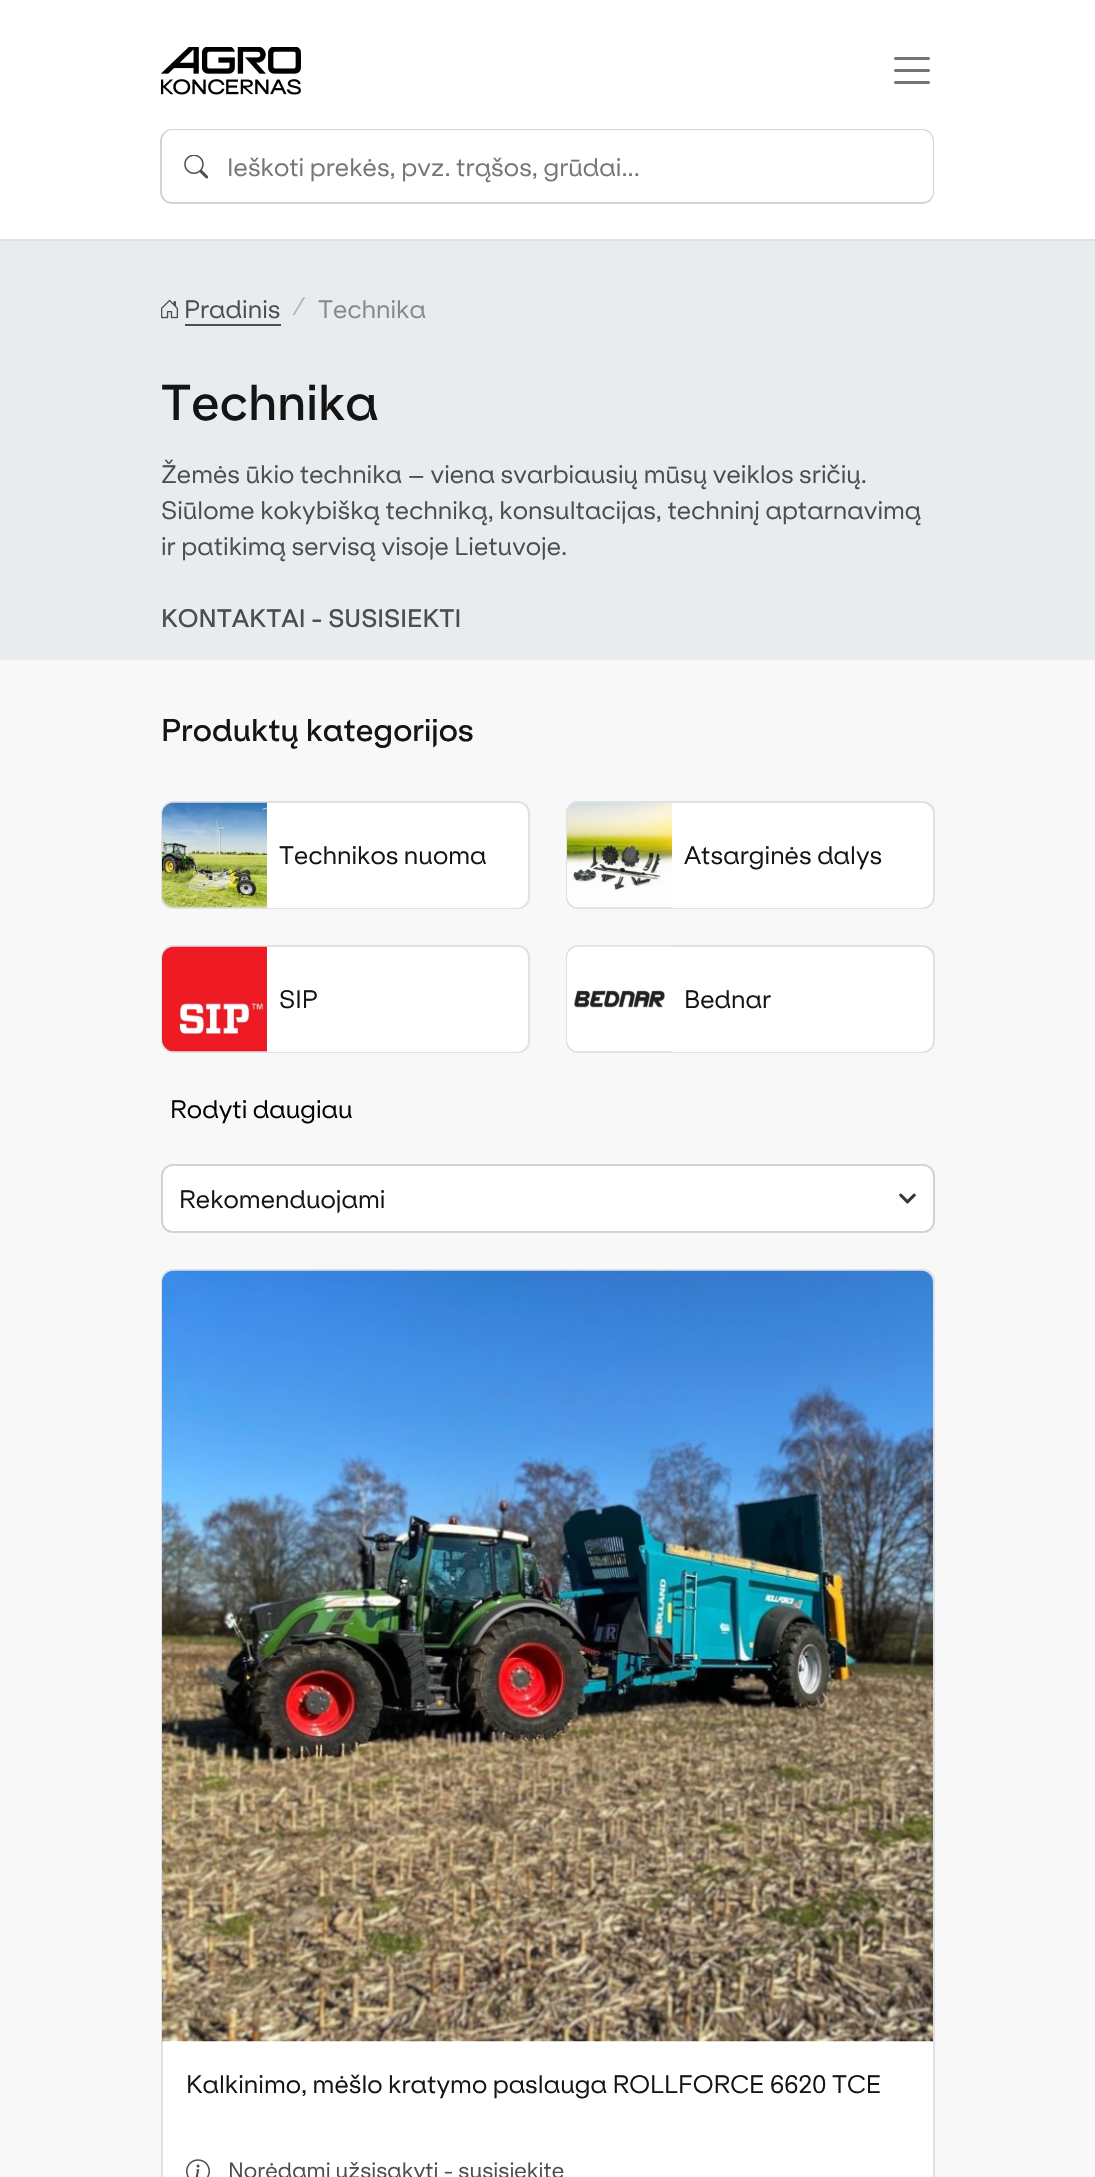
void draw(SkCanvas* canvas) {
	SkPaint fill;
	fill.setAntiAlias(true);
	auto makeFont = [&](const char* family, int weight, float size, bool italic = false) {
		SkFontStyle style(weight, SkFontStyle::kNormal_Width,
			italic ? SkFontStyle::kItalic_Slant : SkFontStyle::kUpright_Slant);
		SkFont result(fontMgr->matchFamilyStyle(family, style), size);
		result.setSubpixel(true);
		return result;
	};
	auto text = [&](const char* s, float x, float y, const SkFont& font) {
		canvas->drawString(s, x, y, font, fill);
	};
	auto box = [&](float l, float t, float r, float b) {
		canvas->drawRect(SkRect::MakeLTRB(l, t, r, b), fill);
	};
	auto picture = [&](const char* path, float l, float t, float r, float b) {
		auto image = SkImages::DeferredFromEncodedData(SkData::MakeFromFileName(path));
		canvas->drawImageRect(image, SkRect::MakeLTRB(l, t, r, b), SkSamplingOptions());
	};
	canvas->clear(0xFFFFFFFF);
	fill.setColor(0xFFDEE2E6);
	box(0, 239, 1095, 241);
	picture("image0.png", 161, 47, 301, 95);
	fill.setStyle(SkPaint::kStroke_Style);
	fill.setStrokeWidth(3);
	fill.setStrokeCap(SkPaint::kRound_Cap);
	fill.setColor(0xFF737373);
	canvas->drawPath(SkPathBuilder().moveTo(895.5f, 58.5f).lineTo(928.5f, 58.5f).moveTo(895.5f, 70.5f).lineTo(928.5f, 70.5f).moveTo(895.5f, 82.5f).lineTo(928.5f, 82.5f).detach(), fill);
	fill.setStyle(SkPaint::kFill_Style);
	fill.setColor(0xFFCED4DA);
	canvas->drawPath(SkPathBuilder(SkPathFillType::kEvenOdd).moveTo(172, 129).lineTo(224, 129).lineTo(224, 204).lineTo(172, 204).cubicTo(166, 204, 160, 199, 160, 192).lineTo(160, 141).cubicTo(160, 134, 166, 129, 172, 129).close().moveTo(172, 130).lineTo(224, 130).lineTo(224, 202).lineTo(172, 202).cubicTo(167, 202, 162, 198, 162, 192).lineTo(162, 141).cubicTo(162, 135, 167, 130, 172, 130).close().detach(), fill);
	picture("image1.png", 184, 155, 208, 179);
	canvas->drawPath(SkPathBuilder(SkPathFillType::kEvenOdd).moveTo(224, 129).lineTo(922, 129).cubicTo(929, 129, 934, 134, 934, 141).lineTo(934, 192).cubicTo(934, 199, 929, 204, 922, 204).lineTo(224, 204).close().moveTo(224, 130).lineTo(922, 130).cubicTo(928, 130, 933, 135, 933, 141).lineTo(933, 192).cubicTo(933, 198, 928, 202, 922, 202).lineTo(224, 202).close().detach(), fill);
	fill.setColor(0xFFF8F8F8);
	box(0, 660, 1095, 2177);
	fill.setColor(0xFFE9ECEF);
	box(0, 241, 1095, 660);
	picture("image2.png", 161, 299, 179, 319);
	fill.setColor(0xFF4D4D4D);
	box(185, 324, 281, 326);
	fill.setStyle(SkPaint::kStroke_Style);
	fill.setStrokeWidth(2);
	fill.setStrokeCap(SkPaint::kButt_Cap);
	fill.setColor(0xFFDEE2E6);
	canvas->drawRoundRect(SkRect::MakeLTRB(162, 802, 529, 908), 11, 11, fill);
	picture("image3.png", 162, 802, 267, 908);
	fill.setStyle(SkPaint::kFill_Style);
	fill.setColor(0xFFFFFFFF);
	canvas->drawPath(SkPathBuilder().moveTo(267, 803).lineTo(516, 803).cubicTo(522.5f, 803, 528, 808.5f, 528, 815).lineTo(528, 896).cubicTo(528, 902.5f, 522.5f, 908, 516, 908).lineTo(267, 908).close().detach(), fill);
	fill.setStyle(SkPaint::kStroke_Style);
	fill.setColor(0xFFDEE2E6);
	canvas->drawRoundRect(SkRect::MakeLTRB(567, 802, 934, 908), 11, 11, fill);
	picture("image4.png", 567, 802, 672, 908);
	fill.setStyle(SkPaint::kFill_Style);
	fill.setColor(0xFFFFFFFF);
	canvas->drawPath(SkPathBuilder().moveTo(672, 803).lineTo(921, 803).cubicTo(927.5f, 803, 933, 808.5f, 933, 815).lineTo(933, 896).cubicTo(933, 902.5f, 927.5f, 908, 921, 908).lineTo(672, 908).close().detach(), fill);
	fill.setStyle(SkPaint::kStroke_Style);
	fill.setColor(0xFFDEE2E6);
	canvas->drawRoundRect(SkRect::MakeLTRB(162, 946, 529, 1052), 11, 11, fill);
	picture("image5.png", 162, 946, 267, 1052);
	fill.setStyle(SkPaint::kFill_Style);
	fill.setColor(0xFFFFFFFF);
	canvas->drawPath(SkPathBuilder().moveTo(267, 947).lineTo(516, 947).cubicTo(522.5f, 947, 528, 952.5f, 528, 959).lineTo(528, 1040).cubicTo(528, 1046.5f, 522.5f, 1052, 516, 1052).lineTo(267, 1052).close().detach(), fill);
	fill.setStyle(SkPaint::kStroke_Style);
	fill.setColor(0xFFDEE2E6);
	canvas->drawRoundRect(SkRect::MakeLTRB(567, 946, 934, 1052), 11, 11, fill);
	picture("image6.png", 567, 946, 672, 1052);
	fill.setStyle(SkPaint::kFill_Style);
	fill.setColor(0xFFFFFFFF);
	canvas->drawPath(SkPathBuilder().moveTo(672, 947).lineTo(921, 947).cubicTo(927.5f, 947, 933, 952.5f, 933, 959).lineTo(933, 1040).cubicTo(933, 1046.5f, 927.5f, 1052, 921, 1052).lineTo(672, 1052).close().detach(), fill);
	canvas->drawRoundRect(SkRect::MakeLTRB(162, 1165, 934, 1232), 11, 11, fill);
	fill.setStyle(SkPaint::kStroke_Style);
	fill.setColor(0xFFCED4DA);
	canvas->drawRoundRect(SkRect::MakeLTRB(162, 1165, 934, 1232), 11, 11, fill);
	picture("image7.png", 899, 1193, 916, 1204);
	fill.setStyle(SkPaint::kFill_Style);
	fill.setColor(0xFFFFFFFF);
	canvas->drawRoundRect(SkRect::MakeLTRB(162, 1270, 934, 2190), 11, 11, fill);
	fill.setStyle(SkPaint::kStroke_Style);
	fill.setColor(0xFFDEE2E6);
	canvas->drawRoundRect(SkRect::MakeLTRB(162, 1270, 934, 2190), 11, 11, fill);
	picture("image8.png", 162, 1270, 933, 2042);
	picture("image9.png", 186, 2159, 210, 2177);
	auto font1 = makeFont("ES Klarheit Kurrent", 400, 24);
	fill.setStyle(SkPaint::kFill_Style);
	fill.setColor(0xFF757575);
	text("Ieškoti prekės, pvz. trąšos, grūdai...", 227, 176, font1);
	fill.setColor(0xFF4D4D4D);
	text("Pradinis", 184, 318, font1);
	fill.setColor(0xFFADB5BD);
	text("/", 292, 315, font1);
	fill.setColor(0xFF85898C);
	text("Technika", 318, 318, font1);
	auto font2 = makeFont("ES Klarheit Kurrent", 500, 48);
	fill.setColor(0xFF141414);
	text("Technika", 161, 420, font2);
	fill.setColor(0xFF4D4D4D);
	text("Žemės ūkio technika – viena svarbiausių mūsų veiklos sričių.", 161, 483, font1);
	text("Siūlome kokybišką techniką, konsultacijas, techninį aptarnavimą", 161, 519, font1);
	text("ir patikimą servisą visoje Lietuvoje.", 161, 555, font1);
	auto font3 = makeFont("ES Klarheit Kurrent", 500, 24);
	text("KONTAKTAI - SUSISIEKTI", 161, 627, font3);
	auto font4 = makeFont("ES Klarheit Kurrent", 500, 30);
	fill.setColor(0xFF141414);
	text("Produktų kategorijos", 161, 741, font4);
	text("Technikos nuoma", 279, 864, font1);
	text("Atsarginės dalys", 684, 864, font1);
	text("SIP", 279, 1008, font1);
	text("Bednar", 684, 1008, font1);
	fill.setColor(0xFF000000);
	text("Rodyti daugiau", 170, 1118, font1);
	fill.setColor(0xFF141414);
	text("Rekomenduojami", 179, 1208, font1);
	text("Kalkinimo, mėšlo kratymo paslauga ROLLFORCE 6620 TCE", 186, 2093, font1);
	auto font5 = makeFont("ES Klarheit Kurrent", 400, 21);
	fill.setColor(0xFF4D4D4D);
	text("Norėdami užsisakyti - susisiekite", 228, 2178, font5);
}
